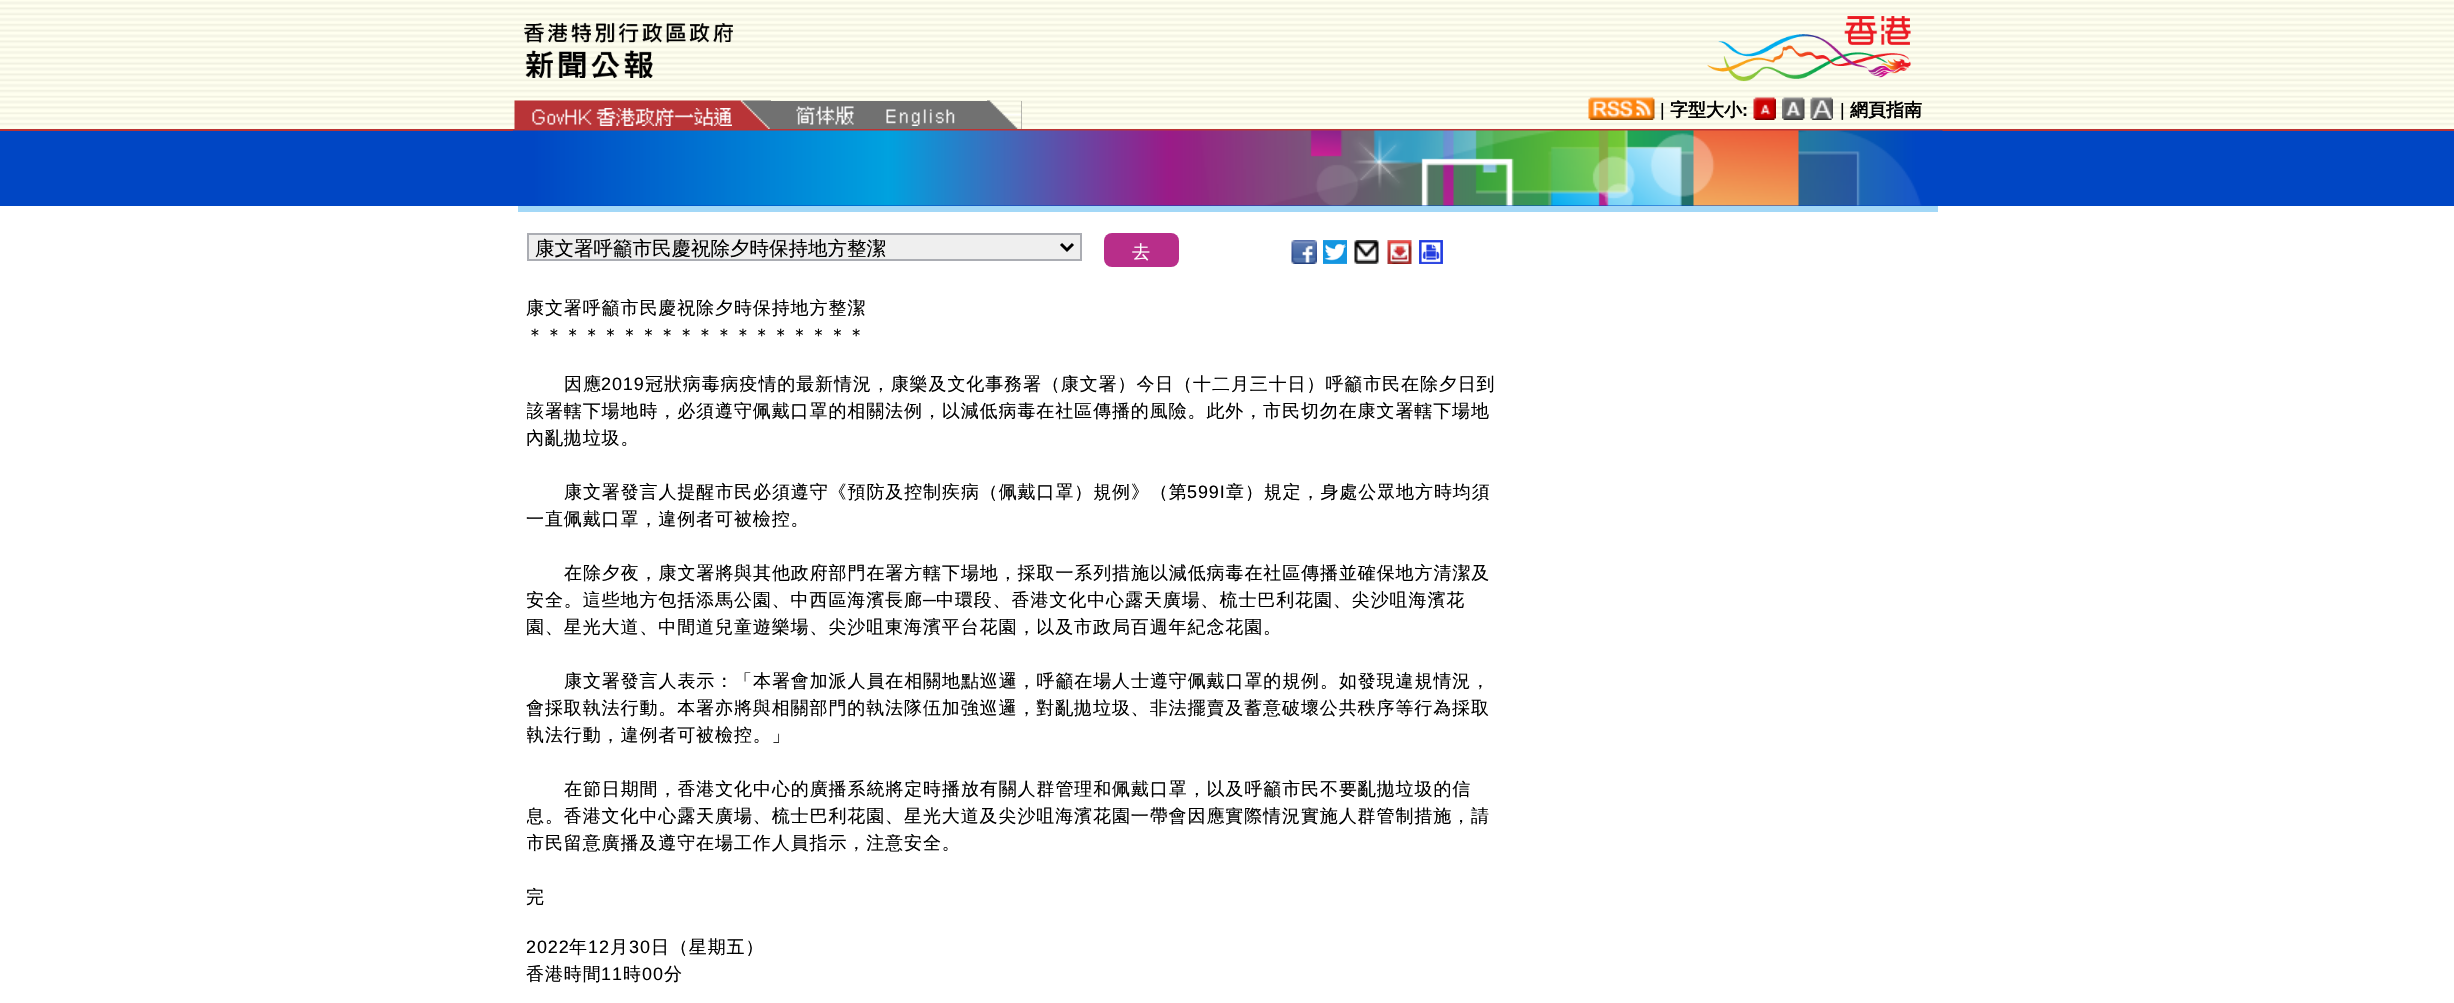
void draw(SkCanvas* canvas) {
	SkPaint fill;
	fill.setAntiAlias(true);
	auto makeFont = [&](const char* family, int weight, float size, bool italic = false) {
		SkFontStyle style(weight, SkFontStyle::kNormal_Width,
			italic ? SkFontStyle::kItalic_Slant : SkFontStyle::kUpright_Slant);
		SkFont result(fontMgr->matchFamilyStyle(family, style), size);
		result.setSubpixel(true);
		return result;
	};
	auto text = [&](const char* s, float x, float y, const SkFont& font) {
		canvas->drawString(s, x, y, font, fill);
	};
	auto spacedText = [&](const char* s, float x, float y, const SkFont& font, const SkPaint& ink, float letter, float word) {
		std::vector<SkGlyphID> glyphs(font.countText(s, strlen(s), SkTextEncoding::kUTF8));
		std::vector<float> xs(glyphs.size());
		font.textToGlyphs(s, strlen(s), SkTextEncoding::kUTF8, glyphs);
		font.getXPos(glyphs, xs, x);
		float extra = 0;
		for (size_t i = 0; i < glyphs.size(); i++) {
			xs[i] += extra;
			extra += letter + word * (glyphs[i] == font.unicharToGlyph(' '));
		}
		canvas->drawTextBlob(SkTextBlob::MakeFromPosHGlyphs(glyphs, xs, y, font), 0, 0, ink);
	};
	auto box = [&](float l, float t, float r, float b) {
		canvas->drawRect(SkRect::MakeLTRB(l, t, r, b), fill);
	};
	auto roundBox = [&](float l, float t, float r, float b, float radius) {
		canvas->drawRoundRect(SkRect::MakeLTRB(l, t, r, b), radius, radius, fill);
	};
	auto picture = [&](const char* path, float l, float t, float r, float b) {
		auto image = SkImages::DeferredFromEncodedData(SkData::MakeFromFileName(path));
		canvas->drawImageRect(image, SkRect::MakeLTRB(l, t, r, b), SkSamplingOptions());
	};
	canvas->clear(0xFFFFFFFF);
	picture("image0.png", 0, 0, 2454, 129);
	fill.setColor(0xFFBB3333);
	box(0, 129, 2454, 131);
	picture("image1.png", 524, 22, 733, 78);
	picture("image2.png", 1707, 16, 1911, 82);
	fill.setColor(0xFF717171);
	box(771, 101, 1022, 129);
	picture("image3.png", 514, 100, 771, 129);
	picture("image4.png", 532, 108, 732, 126);
	picture("image5.png", 796, 106, 854, 125);
	picture("image6.png", 987, 100, 1022, 129);
	picture("image7.png", 886, 109, 955, 126);
	picture("image8.png", 1588, 97, 1655, 120);
	picture("image9.png", 1753, 97, 1776, 120);
	picture("image10.png", 1782, 97, 1805, 120);
	picture("image11.png", 1810, 97, 1833, 120);
	fill.setColor(0xFF0046C4);
	box(0, 131, 2454, 206);
	picture("image12.png", 513, 130, 1943, 206);
	fill.setColor(0xFFA3D8F7);
	box(518, 206, 1938, 212);
	fill.setColor(0xFFEFEFEF);
	canvas->drawRect(SkRect::MakeLTRB(528, 234, 1081, 260), fill);
	fill.setStyle(SkPaint::kStroke_Style);
	fill.setStrokeWidth(2);
	fill.setColor(0xFFABADB3);
	canvas->drawRect(SkRect::MakeLTRB(528, 234, 1081, 260), fill);
	fill.setStrokeWidth(3);
	fill.setColor(0xFF000000);
	canvas->drawPath(SkPathBuilder().moveTo(1061, 244).lineTo(1067, 250).lineTo(1073, 244).detach(), fill);
	fill.setStyle(SkPaint::kFill_Style);
	fill.setColor(0xFFB82E8A);
	roundBox(1104, 233, 1179, 267, 8);
	picture("image13.png", 1291, 240, 1317, 264);
	picture("image14.png", 1323, 240, 1347, 264);
	picture("image15.png", 1354, 240, 1379, 264);
	picture("image16.png", 1387, 240, 1412, 264);
	picture("image17.png", 1419, 240, 1443, 264);
	auto font1 = makeFont("Liberation Sans", 400, 18);
	fill.setColor(0xFF000000);
	text("|", 1660, 116, font1);
	auto font2 = makeFont("WenQuanYi Zen Hei", 700, 18);
	text("字型大小", 1670, 116, font2);
	auto font3 = makeFont("Liberation Sans", 700, 18);
	text(":", 1742, 116, font3);
	text("|", 1840, 116, font1);
	text("網頁指南", 1850, 116, font2);
	auto font4 = makeFont("WenQuanYi Zen Hei", 500, 19.5f);
	text("康文署呼籲市民慶祝除夕時保持地方整潔", 535, 255, font4);
	auto font5 = makeFont("WenQuanYi Zen Hei", 500, 18);
	fill.setColor(0xFFFFFFFF);
	text("去", 1132, 258, font5);
	fill.setColor(0xFF000000);
	spacedText("康文署呼籲市民慶祝除夕時保持地方整潔", 526, 314, font5, fill, 0.9f, 0);
	spacedText("＊＊＊＊＊＊＊＊＊＊＊＊＊＊＊＊＊＊", 526, 341, font5, fill, 0.9f, 0);
	spacedText("因應", 564, 390, font5, fill, 0.9f, 0);
	spacedText("2019", 601, 390, font1, fill, 0.9f, 0);
	spacedText("冠狀病毒病疫情的最新情況，康樂及文化事務署（康文署）今日（十二月三十日）呼籲市民在除夕日到", 645, 390, font5, fill, 0.9f, 0);
	canvas->save();
	canvas->clipRect(SkRect::MakeLTRB(527, 233, 1502, 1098));
	spacedText("該署轄下場地時，必須遵守佩戴口罩的相關法例，以減低病毒在社區傳播的風險。此外，市民切勿在康文署轄下場地", 526, 417, font5, fill, 0.9f, 0);
	canvas->restore();
	spacedText("內亂拋垃圾。", 526, 444, font5, fill, 0.9f, 0);
	spacedText("康文署發言人提醒市民必須遵守《預防及控制疾病（佩戴口罩）規例》（第", 564, 498, font5, fill, 0.9f, 0);
	spacedText("599I", 1187, 498, font1, fill, 0.9f, 0);
	spacedText("章）規定，身處公眾地方時均須", 1226, 498, font5, fill, 0.9f, 0);
	spacedText("一直佩戴口罩，違例者可被檢控。", 526, 525, font5, fill, 0.9f, 0);
	spacedText("在除夕夜，康文署將與其他政府部門在署方轄下場地，採取一系列措施以減低病毒在社區傳播並確保地方清潔及", 564, 579, font5, fill, 0.9f, 0);
	canvas->save();
	canvas->clipRect(SkRect::MakeLTRB(527, 233, 1502, 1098));
	spacedText("安全。這些地方包括添馬公園、中西區海濱長廊", 526, 606, font5, fill, 0.9f, 0);
	canvas->restore();
	spacedText("─", 923, 606, font1, fill, 0.9f, 0);
	spacedText("中環段、香港文化中心露天廣場、梳士巴利花園、尖沙咀海濱花", 936, 606, font5, fill, 0.9f, 0);
	canvas->save();
	canvas->clipRect(SkRect::MakeLTRB(527, 233, 1502, 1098));
	spacedText("園、星光大道、中間道兒童遊樂場、尖沙咀東海濱平台花園，以及市政局百週年紀念花園。", 526, 633, font5, fill, 0.9f, 0);
	canvas->restore();
	spacedText("康文署發言人表示：「本署會加派人員在相關地點巡邏，呼籲在場人士遵守佩戴口罩的規例。如發現違規情況，", 564, 687, font5, fill, 0.9f, 0);
	spacedText("會採取執法行動。本署亦將與相關部門的執法隊伍加強巡邏，對亂拋垃圾、非法擺賣及蓄意破壞公共秩序等行為採取", 526, 714, font5, fill, 0.9f, 0);
	canvas->save();
	canvas->clipRect(SkRect::MakeLTRB(527, 233, 1502, 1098));
	spacedText("執法行動，違例者可被檢控。」", 526, 741, font5, fill, 0.9f, 0);
	canvas->restore();
	spacedText("在節日期間，香港文化中心的廣播系統將定時播放有關人群管理和佩戴口罩，以及呼籲市民不要亂拋垃圾的信", 564, 795, font5, fill, 0.9f, 0);
	canvas->save();
	canvas->clipRect(SkRect::MakeLTRB(527, 233, 1502, 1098));
	spacedText("息。香港文化中心露天廣場、梳士巴利花園、星光大道及尖沙咀海濱花園一帶會因應實際情況實施人群管制措施，請", 526, 822, font5, fill, 0.9f, 0);
	spacedText("市民留意廣播及遵守在場工作人員指示，注意安全。", 526, 849, font5, fill, 0.9f, 0);
	canvas->restore();
	spacedText("完", 526, 903, font5, fill, 0.9f, 0);
	canvas->save();
	canvas->clipRect(SkRect::MakeLTRB(527, 233, 1502, 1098));
	spacedText("2022", 526, 953, font1, fill, 0.9f, 0);
	canvas->restore();
	spacedText("年", 569, 953, font5, fill, 0.9f, 0);
	spacedText("12", 588, 953, font1, fill, 0.9f, 0);
	spacedText("月", 610, 953, font5, fill, 0.9f, 0);
	spacedText("30", 629, 953, font1, fill, 0.9f, 0);
	spacedText("日（星期五）", 651, 953, font5, fill, 0.9f, 0);
	spacedText("香港時間", 526, 980, font5, fill, 0.9f, 0);
	spacedText("11", 601, 980, font1, fill, 0.9f, 0);
	spacedText("時", 623, 980, font5, fill, 0.9f, 0);
	spacedText("00", 642, 980, font1, fill, 0.9f, 0);
	spacedText("分", 664, 980, font5, fill, 0.9f, 0);
}
